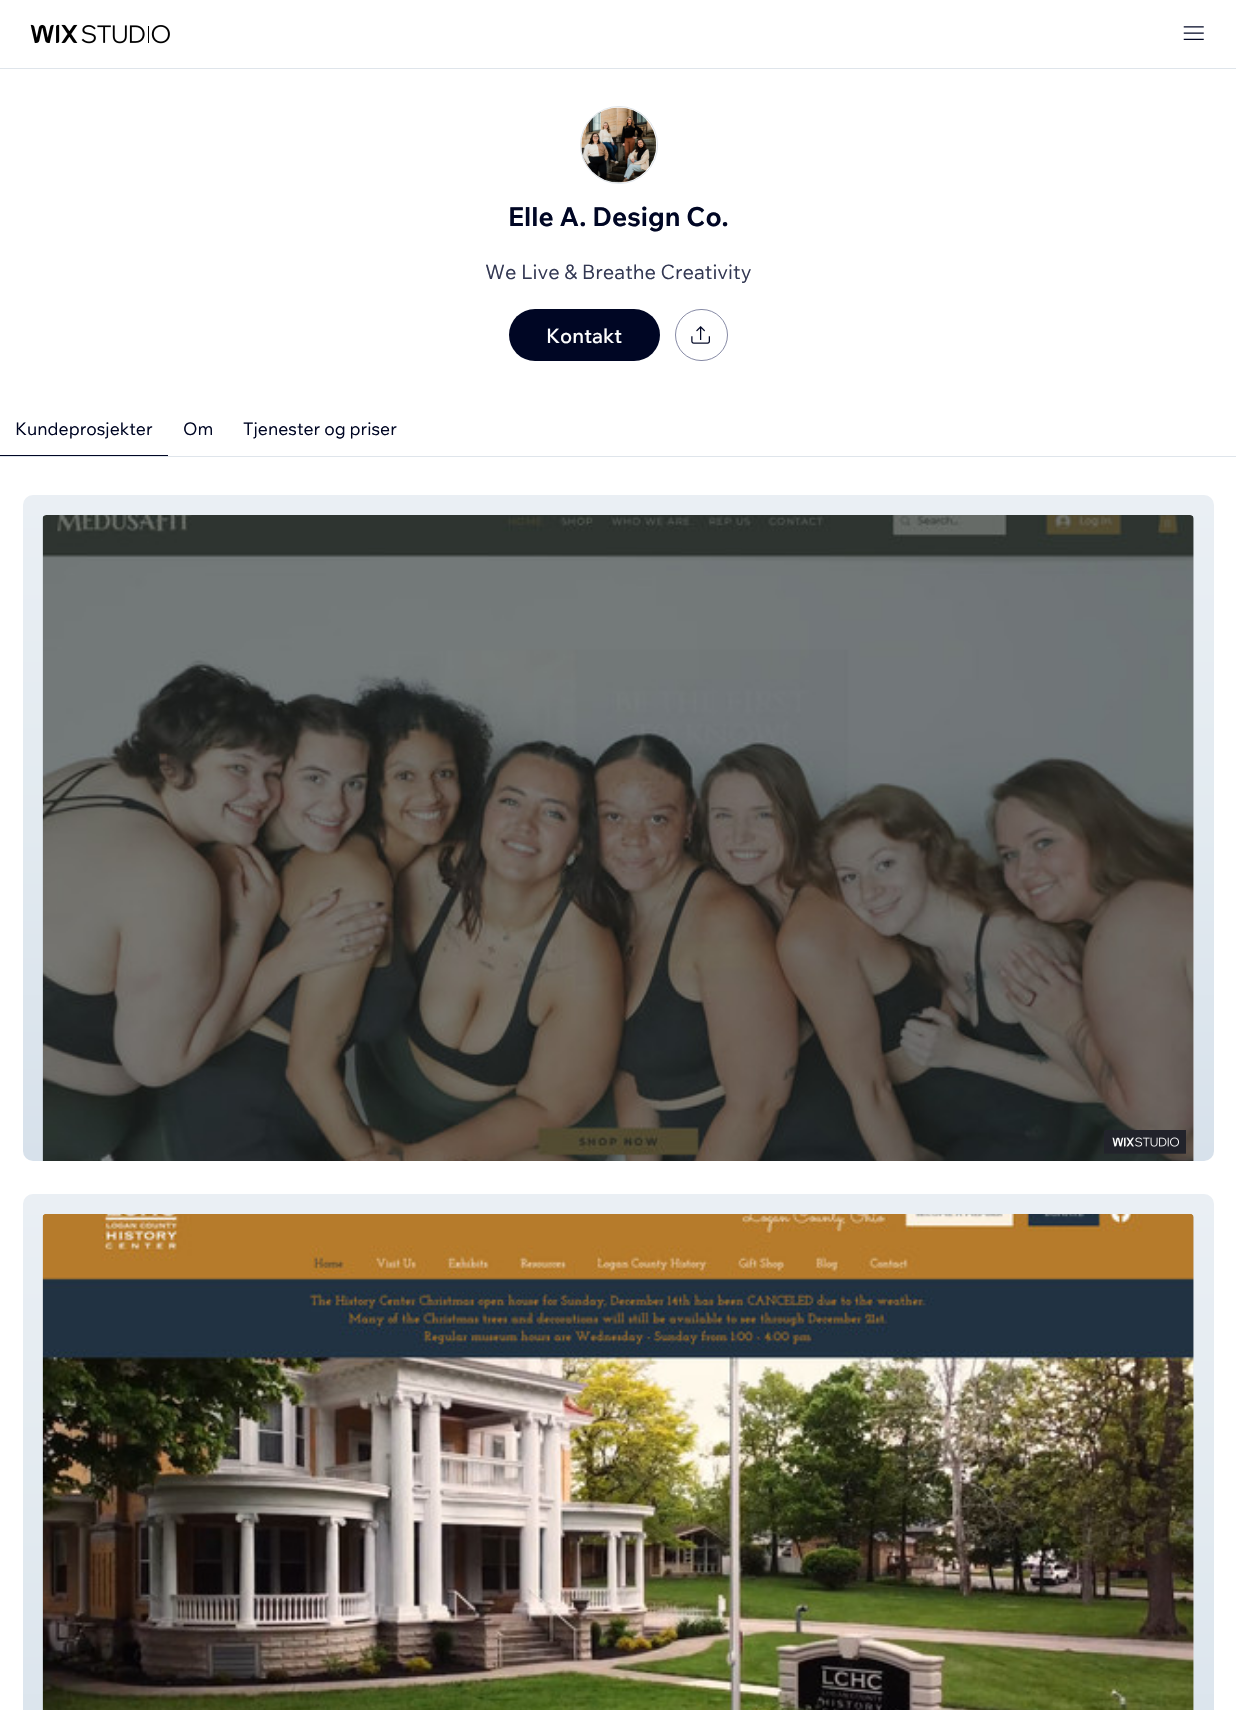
void draw(SkCanvas* canvas) {
	SkPaint fill;
	fill.setAntiAlias(true);
	auto makeFont = [&](const char* family, int weight, float size, bool italic = false) {
		SkFontStyle style(weight, SkFontStyle::kNormal_Width,
			italic ? SkFontStyle::kItalic_Slant : SkFontStyle::kUpright_Slant);
		SkFont result(fontMgr->matchFamilyStyle(family, style), size);
		result.setSubpixel(true);
		return result;
	};
	auto text = [&](const char* s, float x, float y, const SkFont& font) {
		canvas->drawString(s, x, y, font, fill);
	};
	auto box = [&](float l, float t, float r, float b) {
		canvas->drawRect(SkRect::MakeLTRB(l, t, r, b), fill);
	};
	auto roundBox = [&](float l, float t, float r, float b, float radius) {
		canvas->drawRoundRect(SkRect::MakeLTRB(l, t, r, b), radius, radius, fill);
	};
	auto picture = [&](const char* path, float l, float t, float r, float b) {
		auto image = SkImages::DeferredFromEncodedData(SkData::MakeFromFileName(path));
		canvas->drawImageRect(image, SkRect::MakeLTRB(l, t, r, b), SkSamplingOptions());
	};
	canvas->clear(0xFFFFFFFF);
	picture("image0.png", 30, 24, 78, 43);
	picture("image1.png", 81, 25, 170, 44);
	picture("image2.png", 1183, 26, 1204, 40);
	fill.setColor(0xFFDFE5EB);
	box(0, 68, 1236, 69);
	fill.setStyle(SkPaint::kStroke_Style);
	fill.setStrokeWidth(1);
	canvas->drawCircle(619, 145, 38.5f, fill);
	picture("image3.png", 581, 107, 657, 183);
	fill.setStyle(SkPaint::kFill_Style);
	fill.setColor(0xFF000624);
	roundBox(509, 309, 660, 361, 26);
	fill.setStyle(SkPaint::kStroke_Style);
	fill.setColor(0xFF868AA5);
	canvas->drawRoundRect(SkRect::MakeLTRB(675.5f, 309.5f, 727.5f, 360.5f), 25.5f, 25.5f, fill);
	picture("image4.png", 691, 326, 710, 344);
	fill.setStyle(SkPaint::kFill_Style);
	fill.setColor(0xFFDFE5EB);
	box(0, 456, 1236, 457);
	fill.setColor(0xFF000624);
	box(0, 455, 168, 456);
	{
		const SkColor colors[] = {0xFFEAEFF4, 0xFFE2EAF0, 0xFFD7E1EB};
		const float stops[] = {0, 0.5f, 1};
		const SkPoint ends[] = {{618, 495}, {618, 1161}};
		fill.setShader(SkGradientShader::MakeLinear(ends, colors, stops, 3, SkTileMode::kClamp));
		fill.setAlpha(255);
	}
	roundBox(23, 495, 1214, 1161, 10);
	fill.setShader(nullptr);
	fill.setColor(0xFFDFE5EB);
	canvas->drawPath(SkPathBuilder().moveTo(47, 515).lineTo(1190, 515).cubicTo(1192, 515, 1194, 517, 1194, 519).lineTo(1194, 1161).lineTo(43, 1161).lineTo(43, 519).cubicTo(43, 517, 45, 515, 47, 515).close().detach(), fill);
	picture("image5.png", 42, 515, 1194, 1161);
	picture("image6.png", 1104, 1130, 1186, 1154);
	{
		const SkColor colors[] = {0xFFEAEFF4, 0xFFE2EAF0, 0xFFD7E1EB};
		const float stops[] = {0, 0.5f, 1};
		const SkPoint ends[] = {{618, 1194}, {618, 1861}};
		fill.setShader(SkGradientShader::MakeLinear(ends, colors, stops, 3, SkTileMode::kClamp));
		fill.setAlpha(255);
	}
	roundBox(23, 1194, 1214, 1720, 10);
	fill.setShader(nullptr);
	fill.setColor(0xFFDFE5EB);
	canvas->drawPath(SkPathBuilder().moveTo(47, 1214).lineTo(1190, 1214).cubicTo(1192, 1214, 1194, 1216, 1194, 1218).lineTo(1194, 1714).lineTo(43, 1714).lineTo(43, 1218).cubicTo(43, 1216, 45, 1214, 47, 1214).close().detach(), fill);
	picture("image7.png", 42, 1214, 1194, 1710);
	auto font1 = makeFont("Wix Madefor Text", 700, 26.25f);
	fill.setColor(0xFF000624);
	text("Elle A. Design Co.", 508, 226, font1);
	auto font2 = makeFont("Wix Madefor Text", 400, 20);
	fill.setColor(0xFF333853);
	text("We Live & Breathe Creativity", 485, 279, font2);
	auto font3 = makeFont("Wix Madefor Text", 500, 20);
	fill.setColor(0xFFFFFFFF);
	text("Kontakt", 546, 343, font3);
	auto font4 = makeFont("Wix Madefor Text", 400, 17.5f);
	fill.setColor(0xFF000624);
	text("Kundeprosjekter", 15, 435, font4);
	text("Om", 183, 435, font4);
	text("Tjenester og priser", 243, 435, font4);
}
